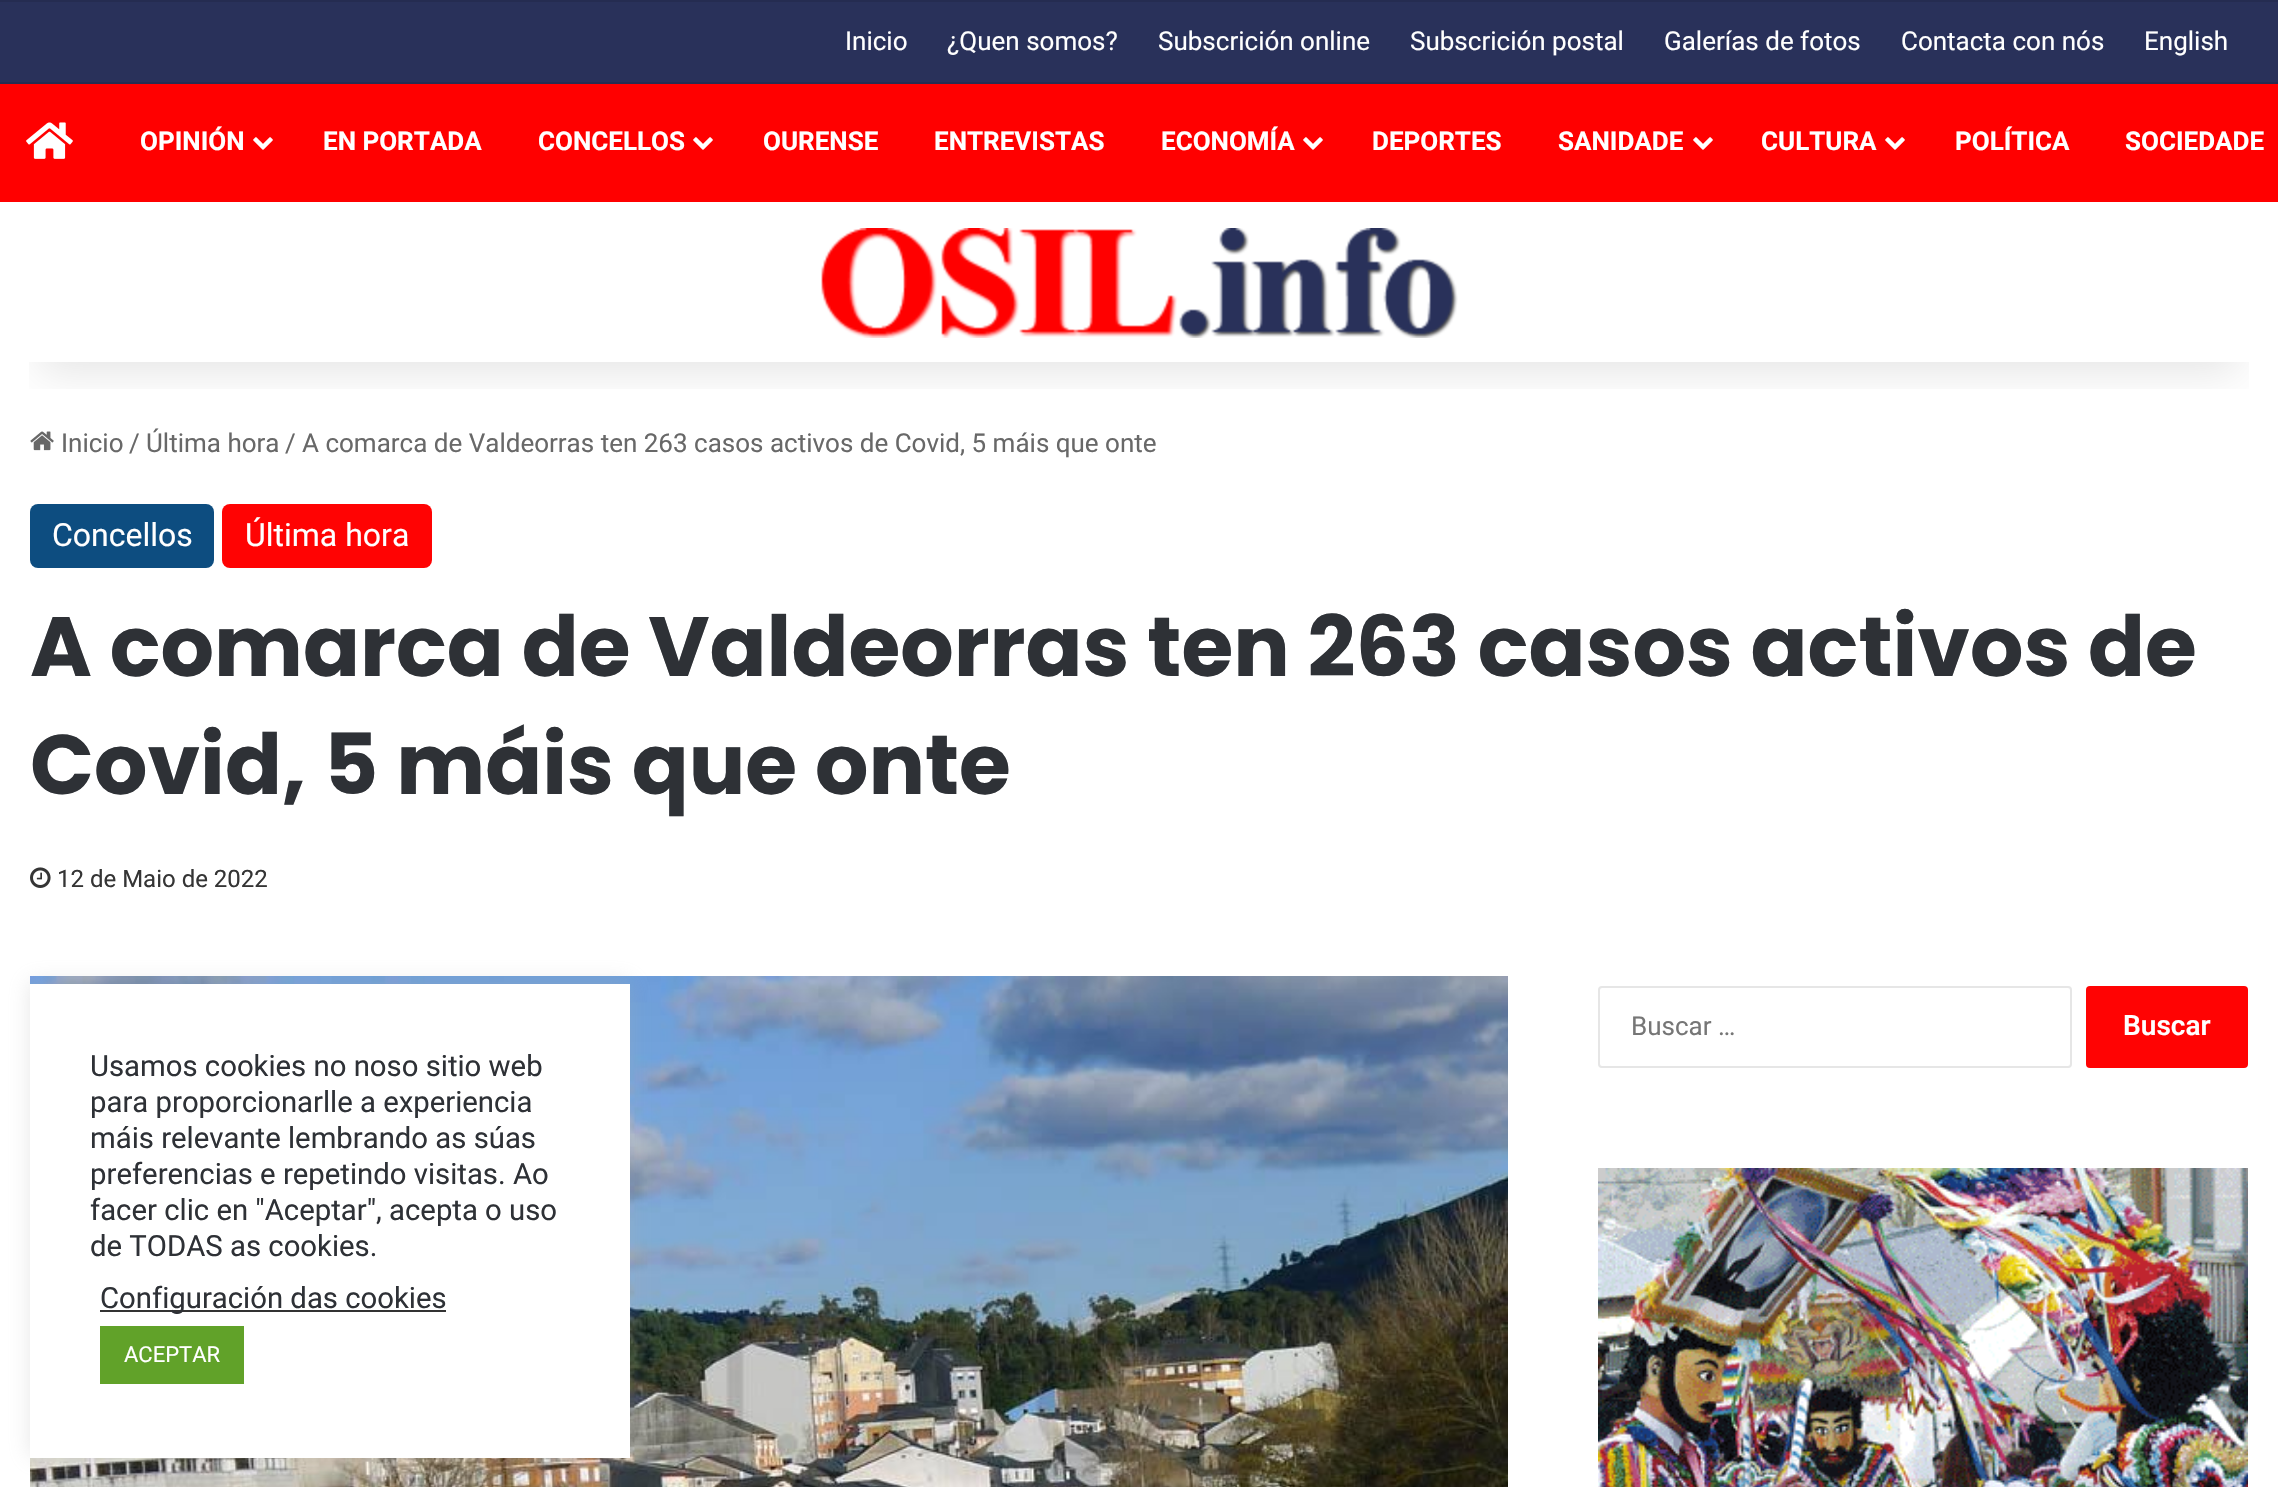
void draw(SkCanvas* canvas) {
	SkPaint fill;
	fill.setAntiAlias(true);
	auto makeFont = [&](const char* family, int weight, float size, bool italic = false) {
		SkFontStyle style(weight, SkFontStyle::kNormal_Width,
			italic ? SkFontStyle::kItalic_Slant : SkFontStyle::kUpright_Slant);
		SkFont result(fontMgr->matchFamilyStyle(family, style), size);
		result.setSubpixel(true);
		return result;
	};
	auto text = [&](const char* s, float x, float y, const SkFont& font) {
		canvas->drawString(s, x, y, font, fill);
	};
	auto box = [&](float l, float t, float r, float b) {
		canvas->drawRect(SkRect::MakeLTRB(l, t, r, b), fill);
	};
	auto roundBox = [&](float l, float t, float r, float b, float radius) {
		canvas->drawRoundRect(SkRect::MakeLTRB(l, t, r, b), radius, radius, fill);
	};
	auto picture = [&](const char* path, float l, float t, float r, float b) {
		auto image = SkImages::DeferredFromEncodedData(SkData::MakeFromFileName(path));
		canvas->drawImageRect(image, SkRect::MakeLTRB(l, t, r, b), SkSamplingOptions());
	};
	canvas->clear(0xFFFFFFFF);
	picture("image3.png", 30, 431, 54, 451);
	canvas->save();
	canvas->clipRect(SkRect::MakeLTRB(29, 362, 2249, 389));
	fill.setColor(0x1A000000);
	fill.setMaskFilter(SkMaskFilter::MakeBlur(kNormal_SkBlurStyle, 20));
	canvas->drawRect(SkRect::MakeLTRB(40, 90, 2238, 372), fill);
	fill.setMaskFilter(nullptr);
	canvas->restore();
	fill.setColor(0xFF29315A);
	box(0, 2, 2278, 82);
	fill.setColor(0xFF252C51);
	box(0, 0, 2278, 2);
	box(0, 82, 2278, 84);
	fill.setColor(0xFFFF0000);
	box(0, 84, 2278, 202);
	picture("image0.png", 26, 122, 73, 159);
	picture("image1.png", 253, 137, 273, 150);
	picture("image1.png", 693, 137, 713, 150);
	picture("image1.png", 1303, 137, 1323, 150);
	picture("image1.png", 1693, 137, 1713, 150);
	picture("image1.png", 1885, 137, 1905, 150);
	picture("image2.png", 821, 228, 1458, 338);
	fill.setColor(0xFF0D4D80);
	roundBox(30, 504, 214, 568, 8);
	fill.setColor(0xFFFF0303);
	roundBox(222, 504, 432, 568, 8);
	picture("image4.png", 30, 867, 51, 888);
	picture("image5.png", 30, 976, 1508, 1487);
	fill.setStyle(SkPaint::kStroke_Style);
	fill.setStrokeWidth(2);
	fill.setColor(0xFFE6E6E6);
	canvas->drawRoundRect(SkRect::MakeLTRB(1599, 987, 2071, 1067), 3, 3, fill);
	fill.setStyle(SkPaint::kFill_Style);
	fill.setColor(0xFFFF0303);
	roundBox(2086, 986, 2248, 1068, 4);
	picture("image6.png", 1598, 1168, 2248, 1487);
	fill.setColor(0x4DACABAB);
	fill.setMaskFilter(SkMaskFilter::MakeBlur(kNormal_SkBlurStyle, 10));
	canvas->drawRect(SkRect::MakeLTRB(30, 982, 630, 1456), fill);
	fill.setMaskFilter(nullptr);
	fill.setColor(0xFFFFFFFF);
	box(30, 984, 630, 1458);
	fill.setColor(0xFF333333);
	box(100, 1310, 446, 1312);
	fill.setColor(0xFF61A229);
	box(100, 1326, 244, 1384);
	auto font1 = makeFont("Roboto", 400, 26);
	fill.setColor(0xFFFFFFFF);
	text("Inicio", 845, 50, font1);
	text("¿Quen somos?", 947, 50, font1);
	text("Subscrición online", 1158, 50, font1);
	text("Subscrición postal", 1410, 50, font1);
	text("Galerías de fotos", 1664, 50, font1);
	text("Contacta con nós", 1901, 50, font1);
	text("English", 2144, 50, font1);
	auto font2 = makeFont("Roboto", 700, 26);
	text("OPINIÓN", 140, 150, font2);
	text("EN PORTADA", 323, 150, font2);
	text("CONCELLOS", 538, 150, font2);
	text("OURENSE", 763, 150, font2);
	text("ENTREVISTAS", 934, 150, font2);
	text("ECONOMÍA", 1161, 150, font2);
	text("DEPORTES", 1372, 150, font2);
	text("SANIDADE", 1558, 150, font2);
	text("CULTURA", 1761, 150, font2);
	text("POLÍTICA", 1955, 150, font2);
	text("SOCIEDADE", 2125, 150, font2);
	fill.setColor(0xFF686868);
	text("Inicio", 61, 452, font1);
	text("/", 129, 452, font1);
	text("Última hora", 146, 452, font1);
	text("/", 285, 452, font1);
	text("A comarca de Valdeorras ten 263 casos activos de Covid, 5 máis que onte", 302, 452, font1);
	auto font3 = makeFont("Roboto", 400, 32);
	fill.setColor(0xFFFFFFFF);
	text("Concellos", 52, 546, font3);
	text("Última hora", 245, 546, font3);
	auto font4 = makeFont("Poppins", 700, 84);
	fill.setColor(0xFF2E3136);
	text("A comarca de Valdeorras ten 263 casos activos de", 30, 676, font4);
	text("Covid, 5 máis que onte", 30, 794, font4);
	auto font5 = makeFont("Roboto", 400, 24);
	fill.setColor(0xFF353535);
	text("12 de Maio de 2022", 57, 887, font5);
	fill.setColor(0xFF767676);
	text("Buscar …", 1631, 1035, font1);
	auto font6 = makeFont("Roboto", 600, 28);
	fill.setColor(0xFFFFFFFF);
	text("Buscar", 2123, 1035, font6);
	auto font7 = makeFont("Roboto", 400, 29.3f);
	fill.setColor(0xFF2E3136);
	text("Usamos cookies no noso sitio web", 90, 1076, font7);
	text("para proporcionarlle a experiencia", 90, 1112, font7);
	text("máis relevante lembrando as súas", 90, 1148, font7);
	text("preferencias e repetindo visitas. Ao", 90, 1184, font7);
	text("facer clic en \"Aceptar\", acepta o uso", 90, 1220, font7);
	text("de TODAS as cookies.", 90, 1256, font7);
	text("Configuración das cookies", 100, 1308, font7);
	auto font8 = makeFont("Roboto", 400, 22);
	fill.setColor(0xFFFFFFFF);
	text("ACEPTAR", 124, 1362, font8);
}
